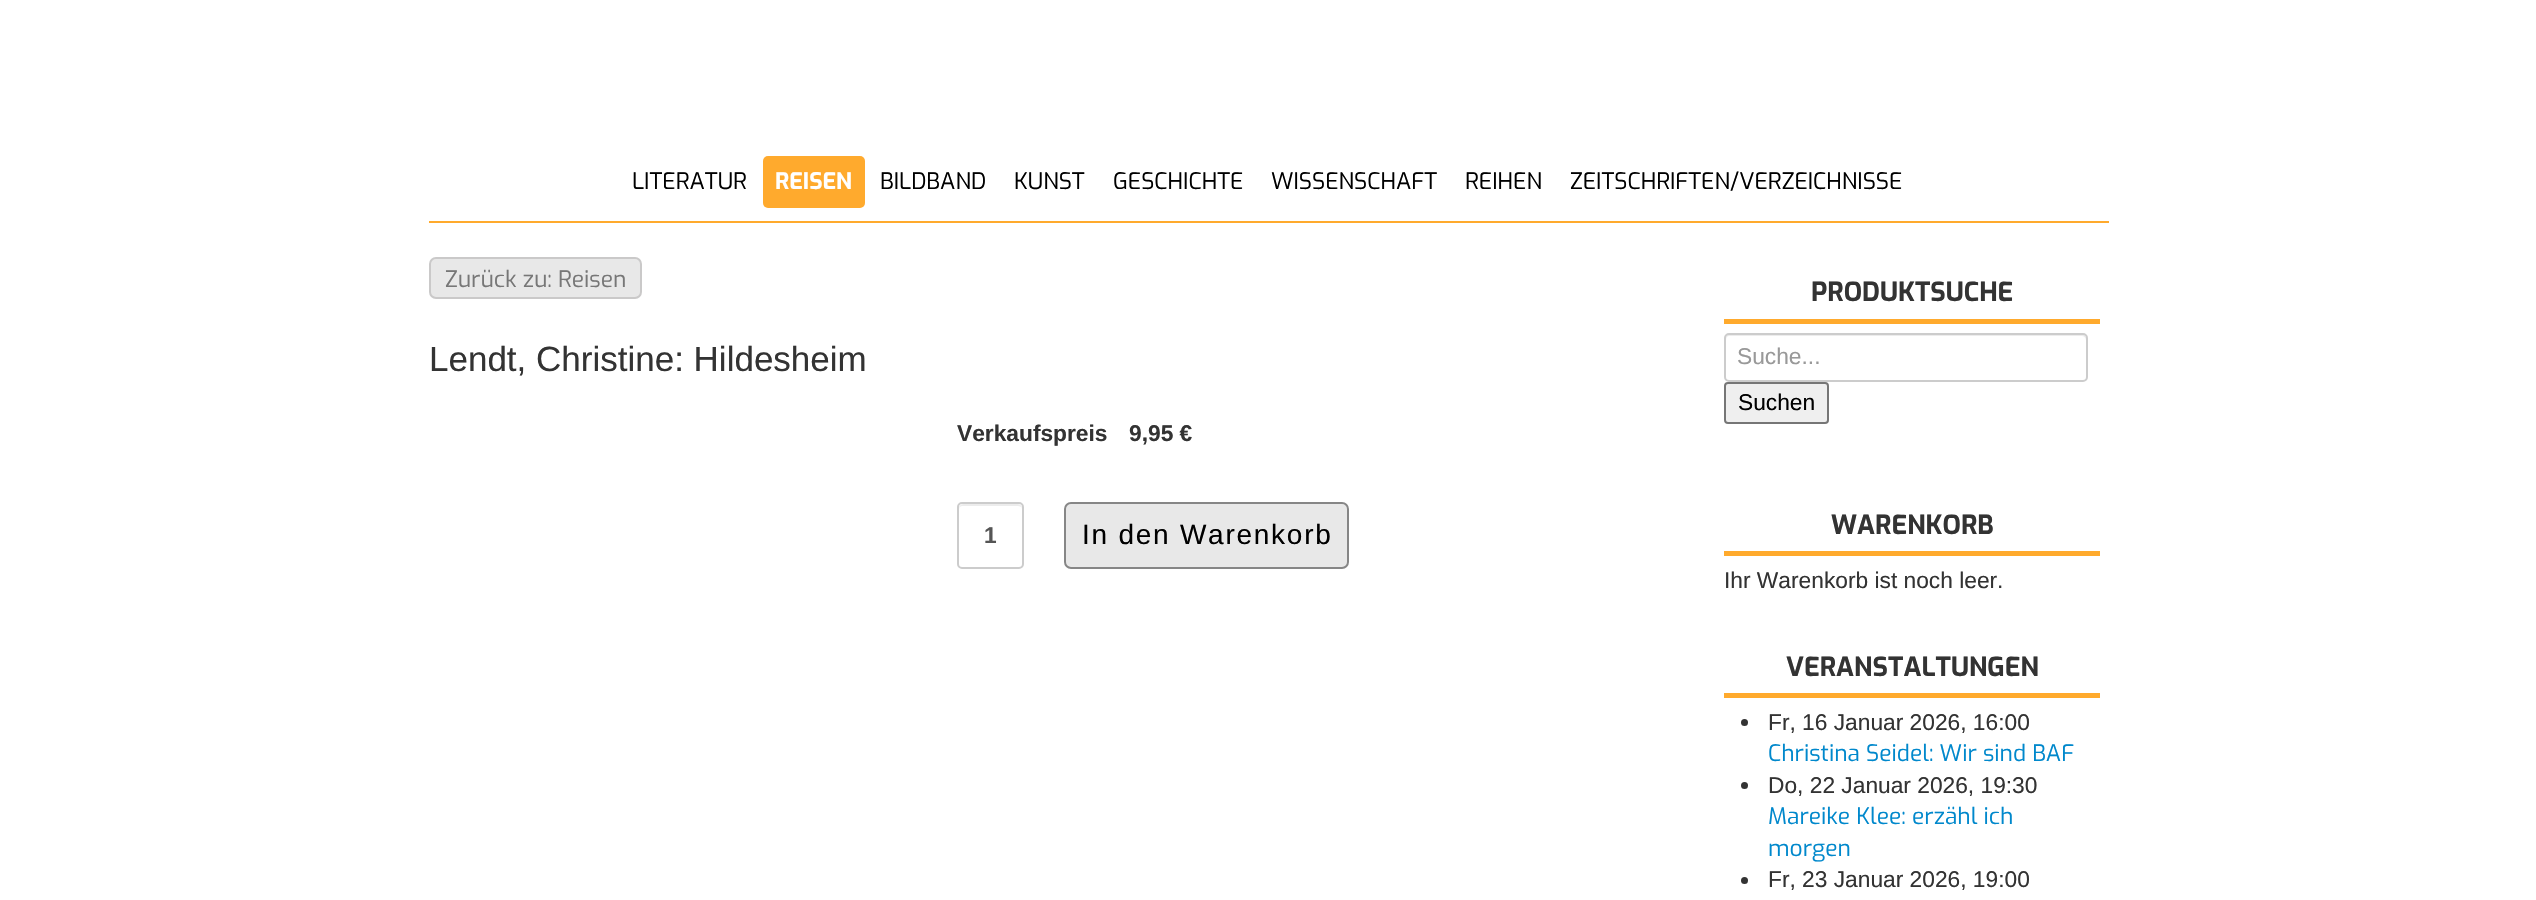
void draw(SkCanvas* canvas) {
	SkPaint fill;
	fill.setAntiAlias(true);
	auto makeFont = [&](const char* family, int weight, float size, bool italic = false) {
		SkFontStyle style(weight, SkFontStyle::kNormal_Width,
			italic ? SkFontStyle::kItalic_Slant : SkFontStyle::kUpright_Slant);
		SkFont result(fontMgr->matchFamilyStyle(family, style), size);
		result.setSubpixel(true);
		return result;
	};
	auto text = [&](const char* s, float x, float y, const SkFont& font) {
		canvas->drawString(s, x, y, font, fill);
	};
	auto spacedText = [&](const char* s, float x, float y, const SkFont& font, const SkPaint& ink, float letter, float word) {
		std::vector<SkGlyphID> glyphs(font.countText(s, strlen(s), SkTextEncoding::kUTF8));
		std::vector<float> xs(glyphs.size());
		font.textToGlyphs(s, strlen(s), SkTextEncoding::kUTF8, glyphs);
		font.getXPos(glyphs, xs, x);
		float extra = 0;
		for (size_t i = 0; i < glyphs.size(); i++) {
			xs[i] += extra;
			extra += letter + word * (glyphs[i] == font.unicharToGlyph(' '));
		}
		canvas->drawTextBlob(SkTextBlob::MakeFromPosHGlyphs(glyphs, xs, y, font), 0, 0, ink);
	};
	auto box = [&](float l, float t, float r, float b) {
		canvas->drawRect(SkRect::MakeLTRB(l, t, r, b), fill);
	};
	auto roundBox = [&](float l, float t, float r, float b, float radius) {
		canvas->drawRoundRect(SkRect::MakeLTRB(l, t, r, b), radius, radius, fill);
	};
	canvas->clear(0xFFFFFFFF);
	fill.setColor(0xFFFFAA2D);
	box(429, 221, 2109, 223);
	roundBox(763, 156, 865, 208, 5);
	fill.setColor(0xFFE8E8E8);
	canvas->drawRoundRect(SkRect::MakeLTRB(430, 258, 641, 298), 6, 6, fill);
	fill.setStyle(SkPaint::kStroke_Style);
	fill.setStrokeWidth(2);
	fill.setColor(0xFFCAC9C9);
	canvas->drawRoundRect(SkRect::MakeLTRB(430, 258, 641, 298), 6, 6, fill);
	fill.setStyle(SkPaint::kFill_Style);
	fill.setColor(0xFFECECEC);
	canvas->drawPath(SkPathBuilder().moveTo(962, 506).lineTo(1018, 506).cubicTo(1020, 506, 1022, 507, 1022, 509).cubicTo(1022, 502, 1014, 504, 1009, 504).lineTo(972, 504).cubicTo(967, 504, 959, 502, 959, 509).cubicTo(959, 507, 961, 506, 962, 506).close().detach(), fill);
	fill.setStyle(SkPaint::kStroke_Style);
	fill.setColor(0xFFCCCCCC);
	canvas->drawRoundRect(SkRect::MakeLTRB(958, 503, 1023, 568), 4, 4, fill);
	fill.setStyle(SkPaint::kFill_Style);
	fill.setColor(0xFFE8E8E8);
	canvas->drawRoundRect(SkRect::MakeLTRB(1065, 503, 1348, 568), 6, 6, fill);
	fill.setStyle(SkPaint::kStroke_Style);
	fill.setColor(0xFF868686);
	canvas->drawRoundRect(SkRect::MakeLTRB(1065, 503, 1348, 568), 6, 6, fill);
	fill.setStyle(SkPaint::kFill_Style);
	fill.setColor(0xFFFFAA2D);
	box(1724, 319, 2100, 324);
	fill.setColor(0xFFECECEC);
	canvas->drawPath(SkPathBuilder().moveTo(1729, 336).lineTo(2082, 336).cubicTo(2084, 336, 2086, 338, 2086, 340).lineTo(2086, 338).cubicTo(2086, 336, 2084, 334, 2082, 334).lineTo(1730, 334).cubicTo(1728, 334, 1726, 336, 1726, 338).lineTo(1726, 340).cubicTo(1726, 338, 1727, 336, 1729, 336).close().detach(), fill);
	fill.setStyle(SkPaint::kStroke_Style);
	fill.setColor(0xFFCCCCCC);
	canvas->drawRoundRect(SkRect::MakeLTRB(1725, 334, 2087, 381), 4, 4, fill);
	fill.setStyle(SkPaint::kFill_Style);
	fill.setColor(0xFFEFEFEF);
	canvas->drawRoundRect(SkRect::MakeLTRB(1725, 383, 1828, 423), 3, 3, fill);
	fill.setStyle(SkPaint::kStroke_Style);
	fill.setColor(0xFF767676);
	canvas->drawRoundRect(SkRect::MakeLTRB(1725, 383, 1828, 423), 3, 3, fill);
	fill.setStyle(SkPaint::kFill_Style);
	fill.setColor(0xFFFFAA2D);
	box(1724, 551, 2100, 556);
	box(1724, 693, 2100, 698);
	fill.setColor(0xFF333333);
	canvas->drawCircle(1744.5f, 722.5f, 3.5f, fill);
	canvas->drawCircle(1744.5f, 785.5f, 3.5f, fill);
	canvas->drawCircle(1744.5f, 880.5f, 3.5f, fill);
	auto font1 = makeFont("Exo", 400, 22.75f);
	fill.setColor(0xFF000000);
	text("LITERATUR", 632, 189, font1);
	auto font2 = makeFont("Exo", 700, 22.75f);
	fill.setColor(0xFFFFFFFF);
	text("REISEN", 775, 189, font2);
	fill.setColor(0xFF000000);
	text("BILDBAND", 880, 189, font1);
	text("KUNST", 1014, 189, font1);
	text("GESCHICHTE", 1113, 189, font1);
	text("WISSENSCHAFT", 1271, 189, font1);
	text("REIHEN", 1465, 189, font1);
	text("ZEITSCHRIFTEN/VERZEICHNISSE", 1570, 189, font1);
	fill.setColor(0xFF777777);
	text("Zurück zu: Reisen", 445, 287, font1);
	auto font3 = makeFont("Liberation Sans", 400, 35);
	fill.setColor(0xFF333333);
	text("Lendt, Christine: Hildesheim", 429, 371, font3);
	auto font4 = makeFont("Liberation Sans", 700, 22.75f);
	text("Verkaufspreis", 957, 441, font4);
	text("9,95 €", 1129, 441, font4);
	fill.setColor(0xFF555555);
	text("1", 984, 543, font4);
	auto font5 = makeFont("Liberation Sans", 400, 28);
	fill.setColor(0xFF000000);
	spacedText("In den Warenkorb", 1082, 544, font5, fill, 1.75f, 0);
	auto font6 = makeFont("Exo", 700, 26.25f);
	fill.setColor(0xFF333333);
	text("PRODUKTSUCHE", 1811, 301, font6);
	auto font7 = makeFont("Liberation Sans", 400, 22.75f);
	fill.setColor(0xFF999999);
	text("Suche...", 1737, 364, font7);
	fill.setColor(0xFF000000);
	text("Suchen", 1738, 410, font7);
	fill.setColor(0xFF333333);
	text("WARENKORB", 1831, 534, font6);
	text("Ihr Warenkorb ist noch leer.", 1724, 588, font7);
	text("VERANSTALTUNGEN", 1786, 676, font6);
	text("Fr, 16 Januar 2026, 16:00", 1768, 730, font7);
	fill.setColor(0xFF0088CC);
	text("Christina Seidel: Wir sind BAF", 1768, 761, font1);
	fill.setColor(0xFF333333);
	text("Do, 22 Januar 2026, 19:30", 1768, 793, font7);
	fill.setColor(0xFF0088CC);
	text("Mareike Klee: erzähl ich", 1768, 824, font1);
	text("morgen", 1768, 856, font1);
	fill.setColor(0xFF333333);
	text("Fr, 23 Januar 2026, 19:00", 1768, 887, font7);
}
